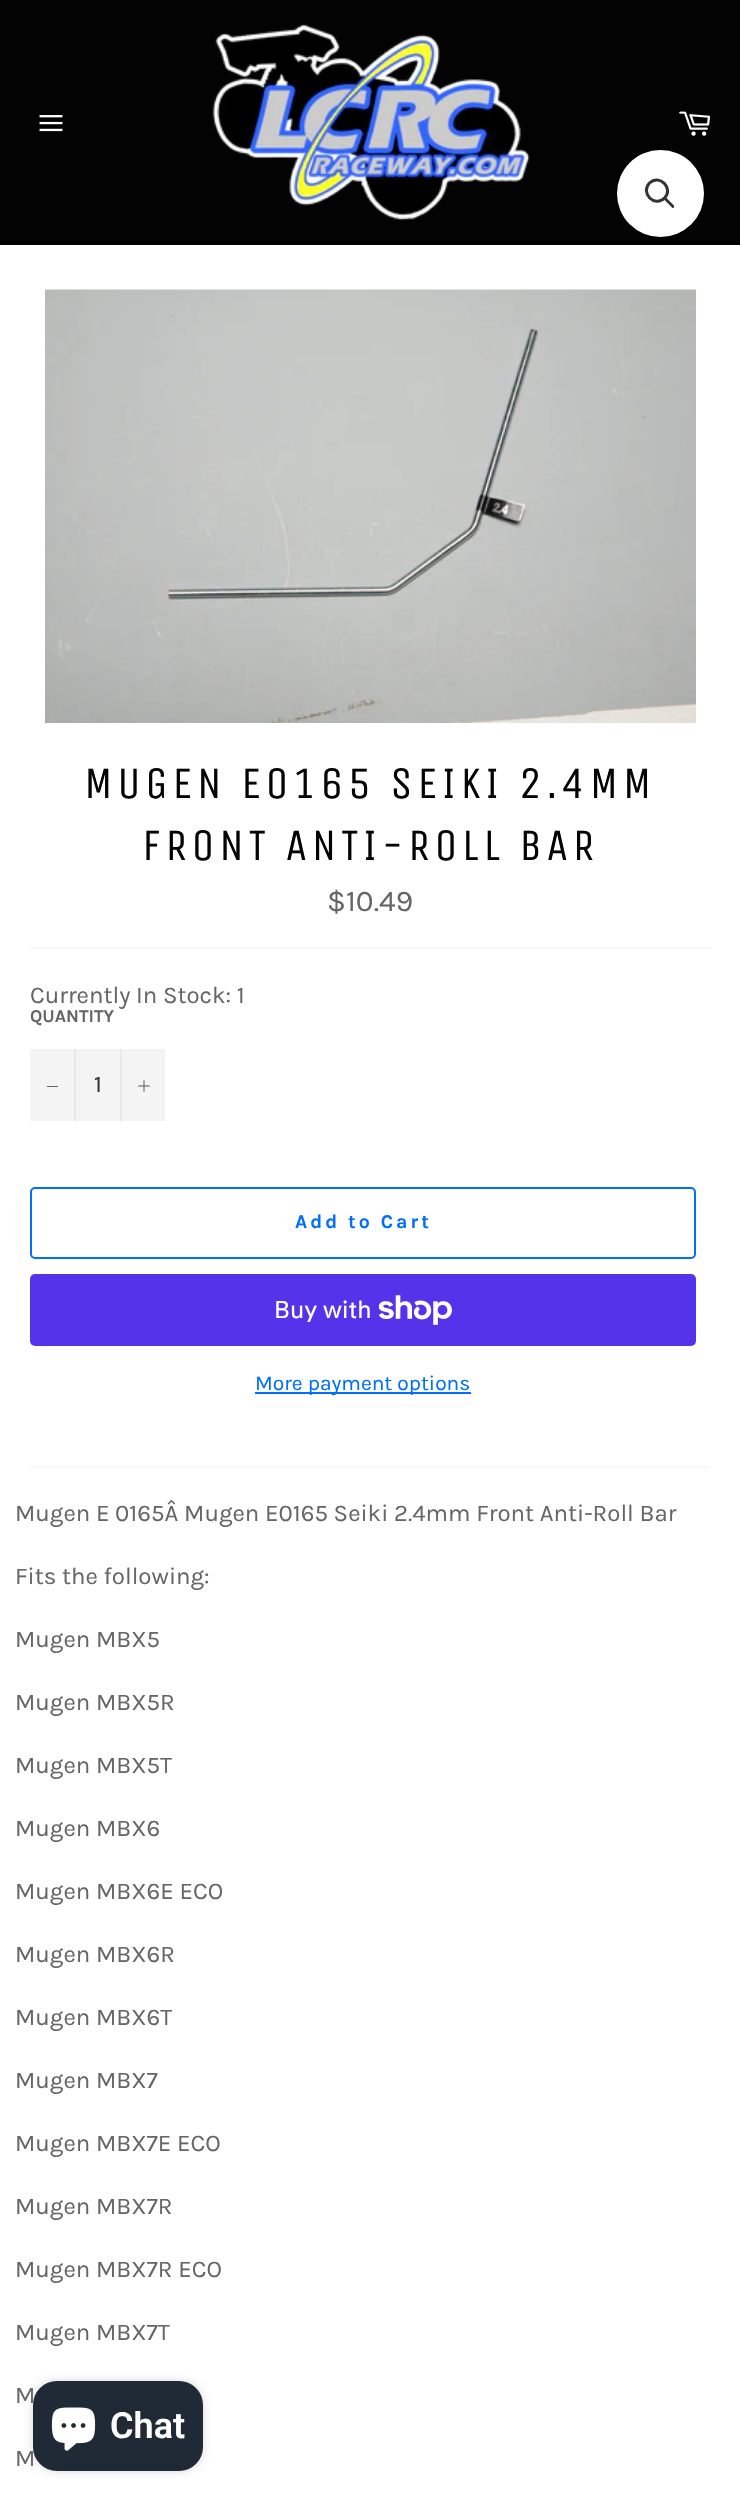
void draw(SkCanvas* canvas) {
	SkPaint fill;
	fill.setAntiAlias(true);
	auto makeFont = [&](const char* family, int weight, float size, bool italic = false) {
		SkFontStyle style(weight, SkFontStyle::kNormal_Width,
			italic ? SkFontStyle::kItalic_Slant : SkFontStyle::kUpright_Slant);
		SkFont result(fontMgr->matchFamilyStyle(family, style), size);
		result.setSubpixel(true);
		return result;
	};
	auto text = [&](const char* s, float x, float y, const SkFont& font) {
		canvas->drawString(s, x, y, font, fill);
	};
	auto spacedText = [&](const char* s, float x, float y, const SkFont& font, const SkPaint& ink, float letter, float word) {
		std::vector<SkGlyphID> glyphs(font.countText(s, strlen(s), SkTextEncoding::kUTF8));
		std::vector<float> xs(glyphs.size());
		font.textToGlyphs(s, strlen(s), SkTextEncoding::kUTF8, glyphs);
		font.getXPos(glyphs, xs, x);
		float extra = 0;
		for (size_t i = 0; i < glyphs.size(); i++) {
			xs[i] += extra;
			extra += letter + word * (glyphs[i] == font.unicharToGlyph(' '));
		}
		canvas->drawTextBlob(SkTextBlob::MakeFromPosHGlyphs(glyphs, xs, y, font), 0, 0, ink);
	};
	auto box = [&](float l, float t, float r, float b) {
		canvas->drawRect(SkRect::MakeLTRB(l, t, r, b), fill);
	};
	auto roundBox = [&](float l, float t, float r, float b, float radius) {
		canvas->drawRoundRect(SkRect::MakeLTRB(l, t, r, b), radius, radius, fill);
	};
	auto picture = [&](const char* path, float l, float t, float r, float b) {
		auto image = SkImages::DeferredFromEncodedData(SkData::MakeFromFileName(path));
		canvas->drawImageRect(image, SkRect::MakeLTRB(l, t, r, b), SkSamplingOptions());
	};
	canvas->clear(0xFF030303);
	picture("image0.png", 39, 115, 63, 132);
	picture("image1.png", 212, 24, 530, 221);
	picture("image2.png", 679, 111, 710, 136);
	fill.setColor(0xFFFFFFFF);
	canvas->drawCircle(660.5f, 193.5f, 43.5f, fill);
	fill.setStyle(SkPaint::kStroke_Style);
	fill.setStrokeWidth(3);
	fill.setColor(0xFF333333);
	canvas->drawPath(SkPathBuilder().moveTo(649.5f, 183).cubicTo(659.5f, 173.5f, 674, 188.5f, 664.5f, 198).cubicTo(654.5f, 208, 640, 193, 649.5f, 183).close().detach(), fill);
	fill.setStyle(SkPaint::kFill_Style);
	canvas->drawPath(SkPathBuilder().moveTo(663.5f, 199).lineTo(665.5f, 197).lineTo(674, 205.5f).cubicTo(675, 207, 673, 209, 672, 207.5f).close().detach(), fill);
	fill.setColor(0xFFFFFFFF);
	box(0, 245, 740, 2501);
	picture("image3.png", 45, 289, 696, 723);
	fill.setColor(0xFFF7F7F7);
	box(30, 947, 711, 949);
	fill.setColor(0xFFF4F4F4);
	box(30, 1049, 165, 1121);
	fill.setColor(0xFFE7E7E7);
	box(74, 1049, 76, 1121);
	fill.setColor(0xFF666666);
	box(47, 1086, 58, 1087);
	fill.setColor(0xFFE7E7E7);
	box(120, 1049, 122, 1121);
	picture("image4.png", 138, 1080, 150, 1092);
	fill.setStyle(SkPaint::kStroke_Style);
	fill.setStrokeWidth(2);
	fill.setColor(0xFF006EFF);
	canvas->drawRoundRect(SkRect::MakeLTRB(31, 1188, 695, 1258), 4, 4, fill);
	fill.setStyle(SkPaint::kFill_Style);
	fill.setColor(0xFF5433EB);
	roundBox(30, 1274, 696, 1346, 5);
	picture("image5.png", 378, 1295, 452, 1325);
	fill.setColor(0xFF006EFF);
	box(255, 1392, 471, 1394);
	fill.setColor(0xFFF7F7F7);
	box(30, 1466, 711, 1468);
	fill.setColor(0x26000000);
	fill.setMaskFilter(SkMaskFilter::MakeBlur(kNormal_SkBlurStyle, 4));
	canvas->drawRoundRect(SkRect::MakeLTRB(33, 2381, 203, 2471), 24, 24, fill);
	fill.setMaskFilter(nullptr);
	fill.setColor(0xFF202A36);
	roundBox(33, 2381, 203, 2471, 24);
	picture("image6.png", 51, 2407, 96, 2451);
	auto font1 = makeFont("Unica One", 400, 45);
	fill.setColor(0xFF030303);
	spacedText("MUGEN E0165 SEIKI 2.4MM", 84, 798, font1, fill, 4.5f, 0);
	spacedText("FRONT ANTI-ROLL BAR", 142, 860, font1, fill, 4.5f, 0);
	auto font2 = makeFont("Karla", 400, 30);
	fill.setColor(0xFF666666);
	text("$10.49", 327, 911, font2);
	auto font3 = makeFont("Karla", 400, 24);
	text("Currently In Stock: 1", 30, 1003, font3);
	auto font4 = makeFont("Karla", 700, 18);
	text("QUANTITY", 30, 1022, font4);
	fill.setColor(0xFF333333);
	text("1", 94, 1092, font3);
	auto font5 = makeFont("Karla", 700, 19.5f);
	fill.setColor(0xFF006EFF);
	spacedText("Add to Cart", 295, 1228, font5, fill, 3, 0);
	auto font6 = makeFont("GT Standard", 400, 24);
	fill.setColor(0xFFFFFFFF);
	text("Buy with", 274, 1318, font6);
	auto font7 = makeFont("Karla", 400, 21);
	fill.setColor(0xFF006EFF);
	text("More payment options", 255, 1390, font7);
	fill.setColor(0xFF666666);
	text("Mugen E 0165Â Mugen E0165 Seiki 2.4mm Front Anti-Roll Bar", 15, 1521, font3);
	text("Fits the following:", 15, 1584, font3);
	text("Mugen MBX5", 15, 1647, font3);
	text("Mugen MBX5R", 15, 1710, font3);
	text("Mugen MBX5T", 15, 1773, font3);
	text("Mugen MBX6", 15, 1836, font3);
	text("Mugen MBX6E ECO", 15, 1899, font3);
	text("Mugen MBX6R", 15, 1962, font3);
	text("Mugen MBX6T", 15, 2025, font3);
	text("Mugen MBX7", 15, 2088, font3);
	text("Mugen MBX7E ECO", 15, 2151, font3);
	text("Mugen MBX7R", 15, 2214, font3);
	text("Mugen MBX7R ECO", 15, 2277, font3);
	text("Mugen MBX7T", 15, 2340, font3);
	text("M", 15, 2403, font3);
	text("M", 15, 2466, font3);
	auto font8 = makeFont("Roboto", 600, 36);
	fill.setColor(0xFFFFFFFF);
	text("Chat", 110, 2438, font8);
}
